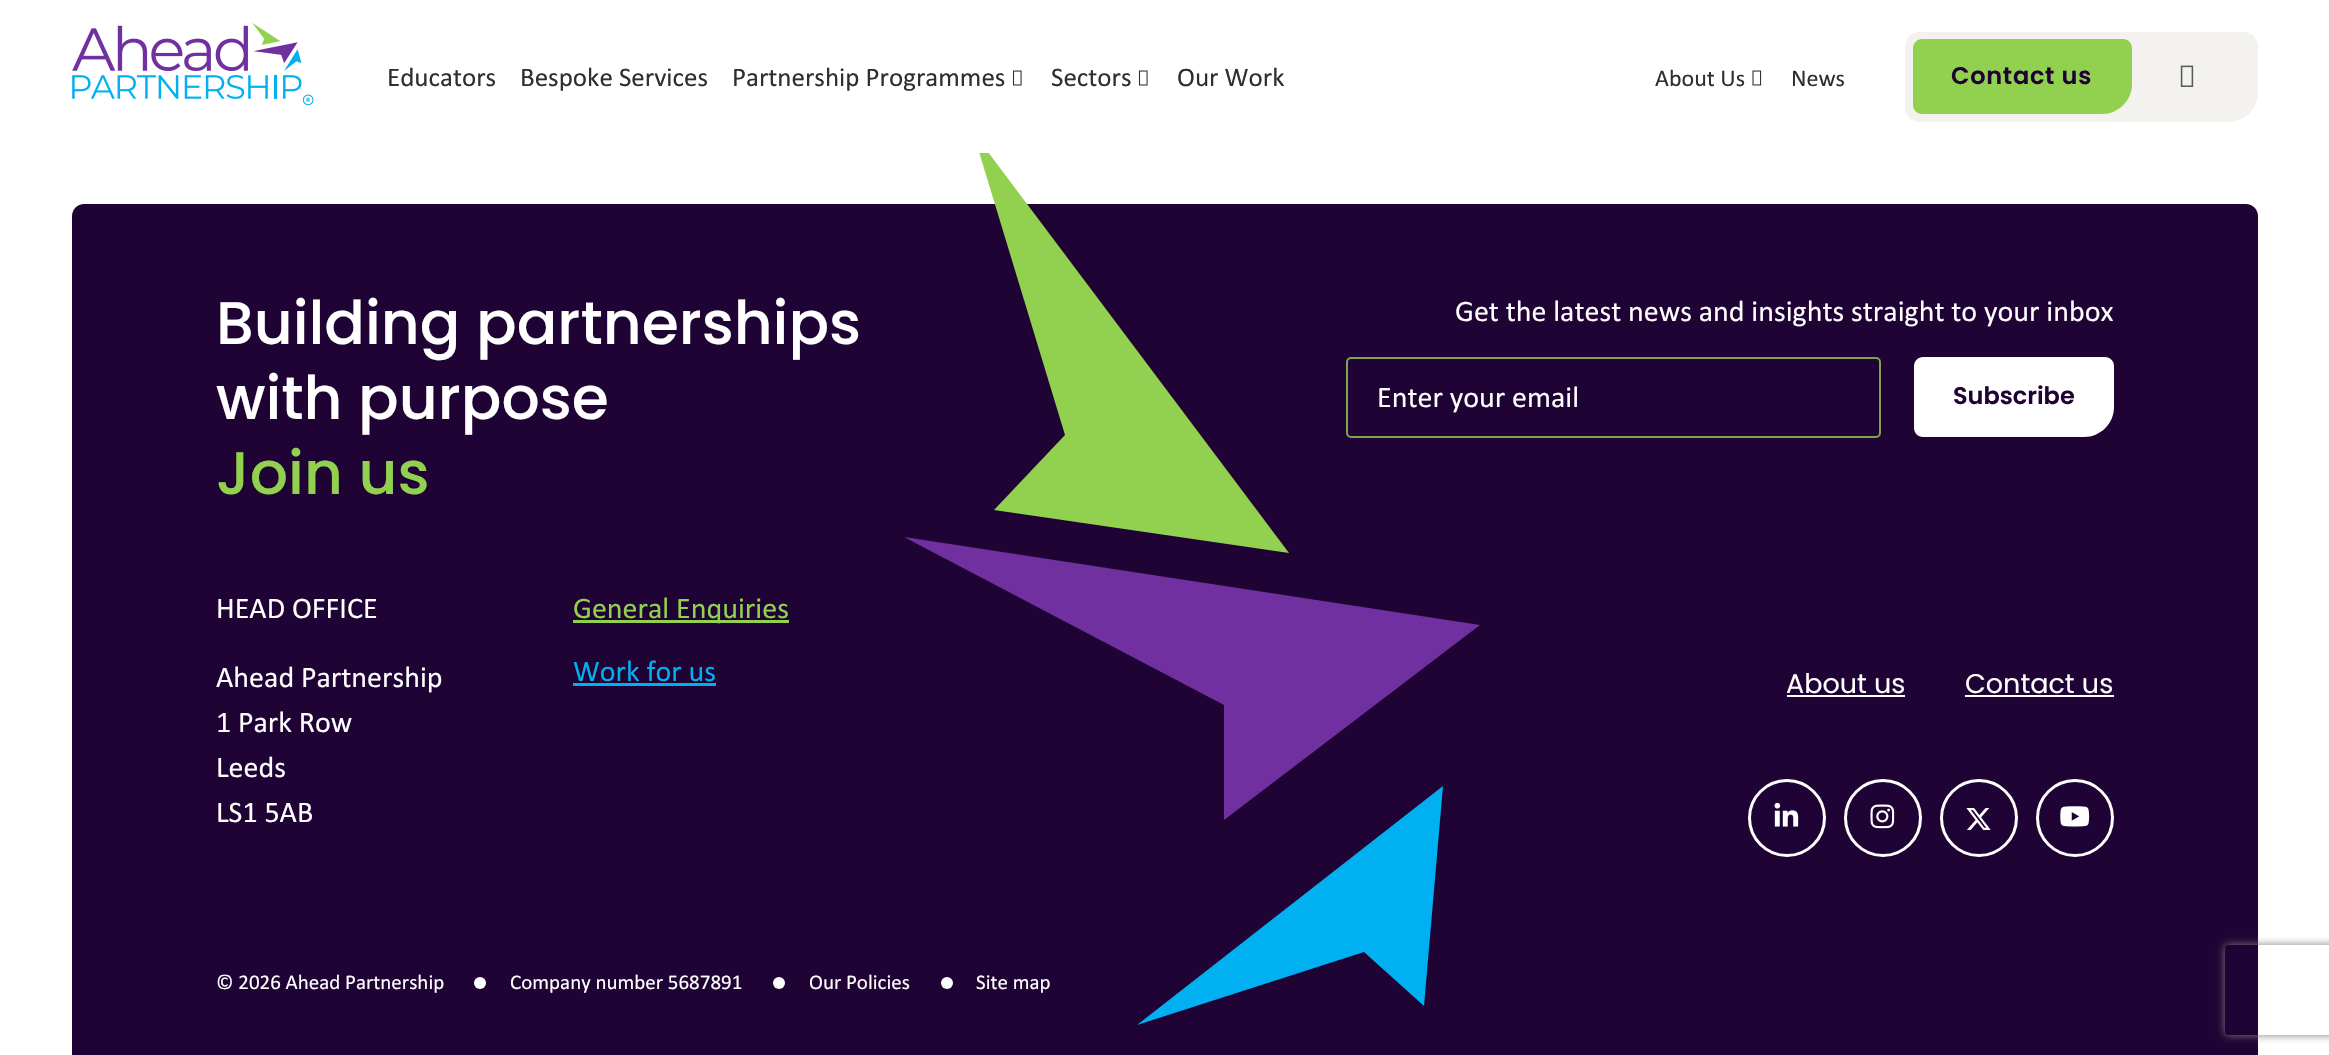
void draw(SkCanvas* canvas) {
	SkPaint fill;
	fill.setAntiAlias(true);
	auto makeFont = [&](const char* family, int weight, float size, bool italic = false) {
		SkFontStyle style(weight, SkFontStyle::kNormal_Width,
			italic ? SkFontStyle::kItalic_Slant : SkFontStyle::kUpright_Slant);
		SkFont result(fontMgr->matchFamilyStyle(family, style), size);
		result.setSubpixel(true);
		return result;
	};
	auto text = [&](const char* s, float x, float y, const SkFont& font) {
		canvas->drawString(s, x, y, font, fill);
	};
	auto spacedText = [&](const char* s, float x, float y, const SkFont& font, const SkPaint& ink, float letter, float word) {
		std::vector<SkGlyphID> glyphs(font.countText(s, strlen(s), SkTextEncoding::kUTF8));
		std::vector<float> xs(glyphs.size());
		font.textToGlyphs(s, strlen(s), SkTextEncoding::kUTF8, glyphs);
		font.getXPos(glyphs, xs, x);
		float extra = 0;
		for (size_t i = 0; i < glyphs.size(); i++) {
			xs[i] += extra;
			extra += letter + word * (glyphs[i] == font.unicharToGlyph(' '));
		}
		canvas->drawTextBlob(SkTextBlob::MakeFromPosHGlyphs(glyphs, xs, y, font), 0, 0, ink);
	};
	auto box = [&](float l, float t, float r, float b) {
		canvas->drawRect(SkRect::MakeLTRB(l, t, r, b), fill);
	};
	auto picture = [&](const char* path, float l, float t, float r, float b) {
		auto image = SkImages::DeferredFromEncodedData(SkData::MakeFromFileName(path));
		canvas->drawImageRect(image, SkRect::MakeLTRB(l, t, r, b), SkSamplingOptions());
	};
	canvas->clear(0xFFFFFFFF);
	fill.setColor(0xFF1F0334);
	canvas->drawPath(SkPathBuilder().moveTo(84, 204).lineTo(2246, 204).cubicTo(2252.5f, 204, 2258, 209.5f, 2258, 216).lineTo(2258, 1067).lineTo(72, 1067).lineTo(72, 216).cubicTo(72, 209.5f, 77.5f, 204, 84, 204).close().detach(), fill);
	fill.setColor(0xFF92D050);
	canvas->drawPath(SkPathBuilder().moveTo(973, 132).lineTo(1289, 553).lineTo(994, 510).lineTo(1065, 435).close().detach(), fill);
	fill.setColor(0xFFFFFFFF);
	box(973, 132, 989, 153);
	picture("image0.png", 72, 23, 314, 106);
	picture("image1.png", 1012, 70, 1022, 86);
	picture("image1.png", 1138, 70, 1148, 86);
	picture("image2.png", 1752, 70, 1762, 86);
	fill.setColor(0xFFF4F2EF);
	canvas->drawPath(SkPathBuilder().moveTo(1920, 32).lineTo(2243, 32).cubicTo(2251.5f, 32, 2258, 38.5f, 2258, 47).lineTo(2258, 92).cubicTo(2258, 108.5f, 2244.5f, 122, 2228, 122).lineTo(1920, 122).cubicTo(1911.5f, 122, 1905, 115.5f, 1905, 107).lineTo(1905, 47).cubicTo(1905, 38.5f, 1911.5f, 32, 1920, 32).close().detach(), fill);
	fill.setColor(0xFF92D050);
	canvas->drawPath(SkPathBuilder().moveTo(1922, 39).lineTo(2123, 39).cubicTo(2128, 39, 2132, 43, 2132, 48).lineTo(2132, 84).cubicTo(2132, 100.5f, 2118.5f, 114, 2102, 114).lineTo(1922, 114).cubicTo(1917, 114, 1913, 110, 1913, 105).lineTo(1913, 48).cubicTo(1913, 43, 1917, 39, 1922, 39).close().detach(), fill);
	picture("image3.png", 2180, 65, 2194, 87);
	box(573, 620, 789, 623);
	fill.setColor(0xFF00B0F0);
	box(573, 683, 716, 686);
	fill.setStyle(SkPaint::kStroke_Style);
	fill.setStrokeWidth(2);
	fill.setColor(0xFF7BA74A);
	canvas->drawRoundRect(SkRect::MakeLTRB(1347, 358, 1880, 437), 4, 4, fill);
	fill.setStyle(SkPaint::kFill_Style);
	fill.setColor(0xFFFFFFFF);
	canvas->drawPath(SkPathBuilder().moveTo(1923, 357).lineTo(2105, 357).cubicTo(2110, 357, 2114, 361, 2114, 366).lineTo(2114, 407).cubicTo(2114, 423.5f, 2100.5f, 437, 2084, 437).lineTo(1923, 437).cubicTo(1918, 437, 1914, 433, 1914, 428).lineTo(1914, 366).cubicTo(1914, 361, 1918, 357, 1923, 357).close().detach(), fill);
	box(1787, 695, 1905, 697);
	box(1965, 695, 2114, 697);
	fill.setStyle(SkPaint::kStroke_Style);
	fill.setStrokeWidth(3);
	canvas->drawCircle(1787, 818, 37.5f, fill);
	picture("image4.png", 1774, 802, 1799, 827);
	canvas->drawCircle(1883, 818, 37.5f, fill);
	picture("image5.png", 1870, 804, 1895, 829);
	canvas->drawCircle(1979, 818, 37.5f, fill);
	picture("image6.png", 1966, 808, 1991, 830);
	canvas->drawCircle(2075, 818, 37.5f, fill);
	picture("image7.png", 2060, 806, 2090, 827);
	fill.setStyle(SkPaint::kFill_Style);
	canvas->drawCircle(480, 983, 6, fill);
	canvas->drawCircle(779, 983, 6, fill);
	canvas->drawCircle(947, 983, 6, fill);
	fill.setColor(0xFF7030A0);
	canvas->drawPath(SkPathBuilder().moveTo(904, 537).lineTo(1480, 625).lineTo(1224, 820).lineTo(1224, 705).close().detach(), fill);
	fill.setColor(0xFF00B0F0);
	canvas->drawPath(SkPathBuilder().moveTo(1137, 1025).lineTo(1443, 786).lineTo(1424, 1006).lineTo(1364, 952).close().detach(), fill);
	canvas->save();
	canvas->clipPath(SkPathBuilder(SkPathFillType::kEvenOdd).moveTo(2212, 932).lineTo(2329, 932).lineTo(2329, 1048).lineTo(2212, 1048).close().moveTo(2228, 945).lineTo(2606, 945).cubicTo(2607.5f, 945, 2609, 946.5f, 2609, 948).lineTo(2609, 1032).cubicTo(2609, 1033.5f, 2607.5f, 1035, 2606, 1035).lineTo(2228, 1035).cubicTo(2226.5f, 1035, 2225, 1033.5f, 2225, 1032).lineTo(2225, 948).cubicTo(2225, 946.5f, 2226.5f, 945, 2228, 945).close().detach(), true);
	fill.setColor(0xFF808080);
	fill.setMaskFilter(SkMaskFilter::MakeBlur(kNormal_SkBlurStyle, 4));
	canvas->drawRoundRect(SkRect::MakeLTRB(2225, 945, 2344, 1035), 3, 3, fill);
	fill.setMaskFilter(nullptr);
	canvas->restore();
	auto font1 = makeFont("Calibri", 400, 27);
	fill.setColor(0xFF2F2F2F);
	text("Educators", 387, 86, font1);
	text("Bespoke Services", 520, 86, font1);
	text("Partnership Programmes", 732, 86, font1);
	text("Sectors", 1051, 86, font1);
	text("Our Work", 1177, 86, font1);
	auto font2 = makeFont("Calibri", 400, 24);
	text("About Us", 1655, 86, font2);
	text("News", 1791, 86, font2);
	auto font3 = makeFont("Poppins", 600, 24);
	fill.setColor(0xFF1F0334);
	spacedText("Contact us", 1951, 84, font3, fill, 0.75f, 0);
	auto font4 = makeFont("Poppins", 500, 60);
	fill.setColor(0xFFFFFFFF);
	text("Building partnerships", 216, 344, font4);
	text("with purpose", 216, 419, font4);
	fill.setColor(0xFF92D050);
	text("Join us", 216, 494, font4);
	auto font5 = makeFont("Calibri", 400, 30);
	fill.setColor(0xFFFFFFFF);
	text("HEAD OFFICE", 216, 618, font5);
	text("Ahead Partnership", 216, 687, font5);
	text("1 Park Row", 216, 732, font5);
	text("Leeds", 216, 777, font5);
	text("LS1 5AB", 216, 822, font5);
	fill.setColor(0xFF92D050);
	text("General Enquiries", 573, 618, font5);
	fill.setColor(0xFF00B0F0);
	text("Work for us", 573, 681, font5);
	fill.setColor(0xFFFFFFFF);
	text("Get the latest news and insights straight to your inbox", 1455, 321, font5);
	text("Enter your email", 1377, 407, font5);
	fill.setColor(0xFF1F0334);
	text("Subscribe", 1953, 404, font3);
	auto font6 = makeFont("Poppins", 400, 27);
	fill.setColor(0xFFFFFFFF);
	text("About us", 1786, 693, font6);
	text("Contact us", 1965, 693, font6);
	auto font7 = makeFont("Calibri", 400, 21);
	text("© 2026 Ahead Partnership", 216, 989, font7);
	text("Company number 5687891", 510, 989, font7);
	text("Our Policies", 809, 989, font7);
	text("Site map", 976, 989, font7);
}
